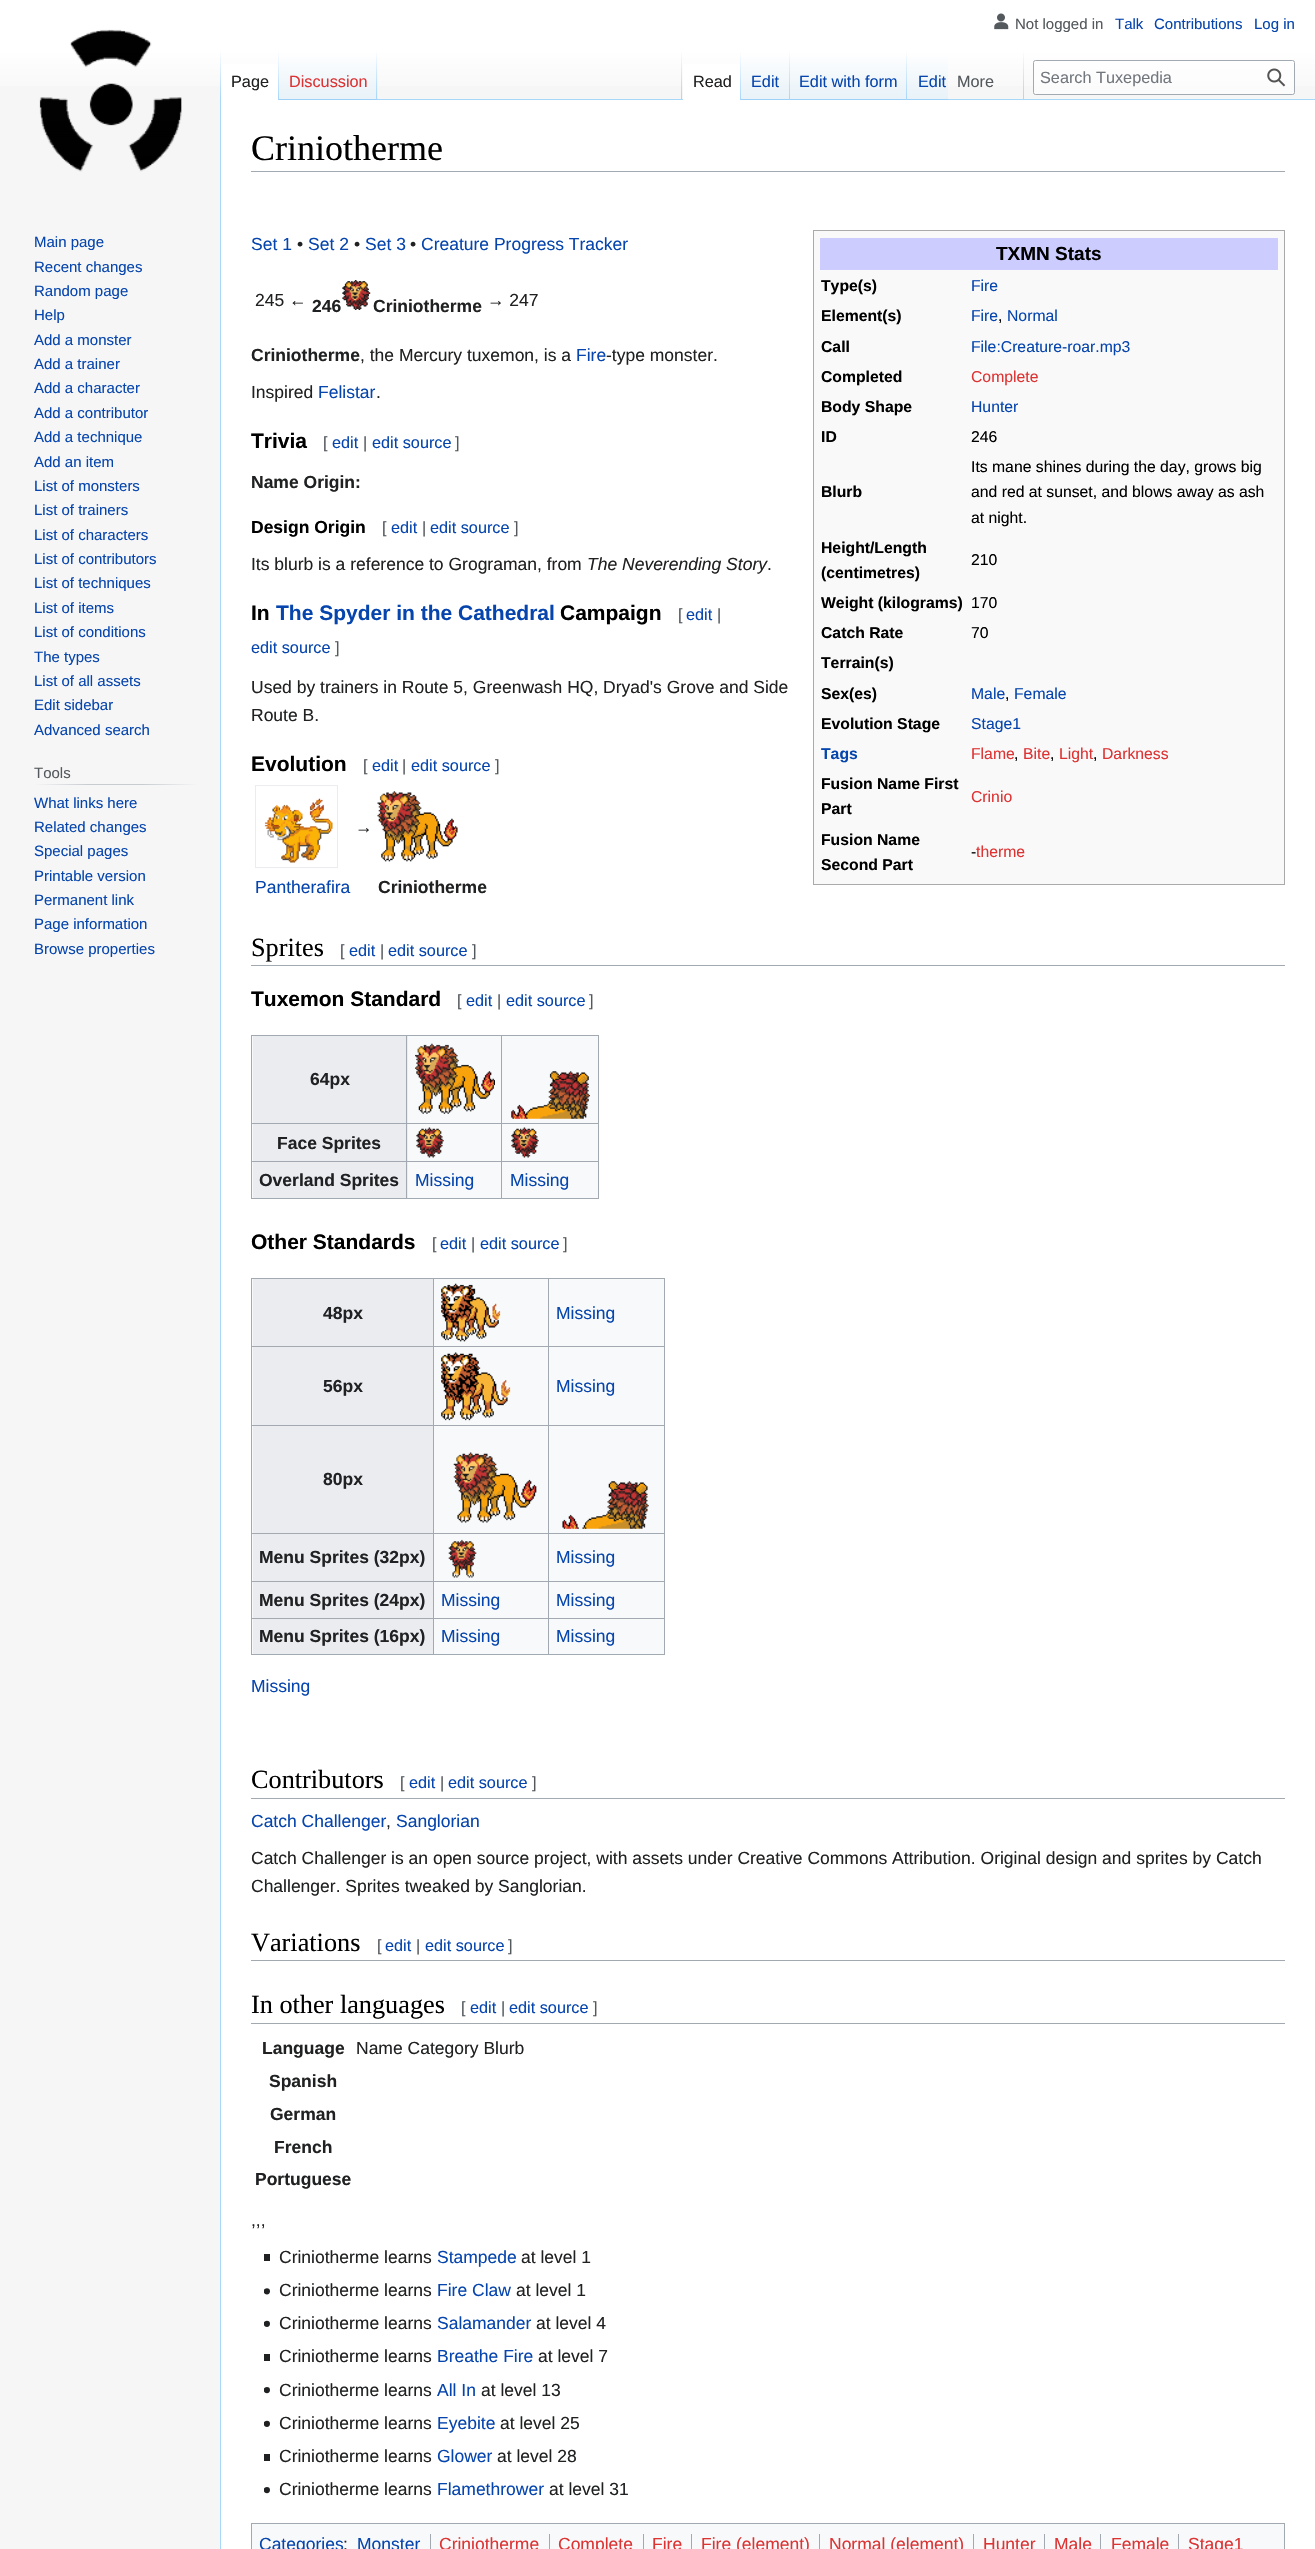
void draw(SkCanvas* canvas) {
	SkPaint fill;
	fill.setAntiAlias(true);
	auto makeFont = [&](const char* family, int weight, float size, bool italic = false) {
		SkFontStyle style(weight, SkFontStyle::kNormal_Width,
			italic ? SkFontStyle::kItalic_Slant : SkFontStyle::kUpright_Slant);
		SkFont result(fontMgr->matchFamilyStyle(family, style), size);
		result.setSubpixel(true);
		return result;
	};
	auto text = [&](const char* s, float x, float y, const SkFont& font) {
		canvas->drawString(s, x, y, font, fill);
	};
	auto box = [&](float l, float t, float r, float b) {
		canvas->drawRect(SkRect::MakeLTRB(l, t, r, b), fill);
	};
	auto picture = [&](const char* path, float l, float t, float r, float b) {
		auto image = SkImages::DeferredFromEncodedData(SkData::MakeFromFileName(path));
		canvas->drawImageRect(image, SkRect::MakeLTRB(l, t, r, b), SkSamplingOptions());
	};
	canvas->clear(0xFFF6F6F6);
	{
		const SkColor colors[] = {0xFFFFFFFF, 0xFFF6F6F6};
		const float stops[] = {0.5f, 1};
		const SkPoint ends[] = {{658, 0}, {658, 100}};
		fill.setShader(SkGradientShader::MakeLinear(ends, colors, stops, 2, SkTileMode::kClamp));
		fill.setAlpha(255);
	}
	box(0, 0, 1315, 86);
	picture("image0.png", 994, 13, 1009, 30);
	fill.setShader(nullptr);
	fill.setColor(0xFFA7D7F9);
	box(220, 99, 221, 2549);
	{
		const SkColor colors[] = {0x00A7D7F9, 0xFFA7D7F9};
		const float stops[] = {0, 1};
		const SkPoint ends[] = {{221, 50}, {221, 100}};
		fill.setShader(SkGradientShader::MakeLinear(ends, colors, stops, 2, SkTileMode::kClamp));
		fill.setAlpha(255);
	}
	box(220, 50, 221, 100);
	fill.setShader(nullptr);
	fill.setColor(0xFFFFFFFF);
	box(221, 64, 278, 100);
	{
		const SkColor colors[] = {0xFFFFFFFF, 0xFFA7D7F9};
		const float stops[] = {0, 1};
		const SkPoint ends[] = {{278, 50}, {278, 100}};
		fill.setShader(SkGradientShader::MakeLinear(ends, colors, stops, 2, SkTileMode::kClamp));
		fill.setAlpha(255);
	}
	box(278, 50, 279, 100);
	{
		const SkColor colors[] = {0xFF77C1F6, 0xFFE8F2F8, 0xFFFFFFFF};
		const float stops[] = {0, 0.03f, 1};
		const SkPoint ends[] = {{328, 100}, {328, 50}};
		fill.setShader(SkGradientShader::MakeLinear(ends, colors, stops, 3, SkTileMode::kClamp));
		fill.setAlpha(255);
	}
	box(279, 57, 378, 100);
	{
		const SkColor colors[] = {0x00A7D7F9, 0xFFA7D7F9};
		const float stops[] = {0, 1};
		const SkPoint ends[] = {{377, 50}, {377, 100}};
		fill.setShader(SkGradientShader::MakeLinear(ends, colors, stops, 2, SkTileMode::kClamp));
		fill.setAlpha(255);
	}
	box(376, 50, 377, 100);
	fill.setShader(nullptr);
	fill.setColor(0xFFA7D7F9);
	box(378, 99, 1315, 100);
	{
		const SkColor colors[] = {0x00A7D7F9, 0xFFA7D7F9};
		const float stops[] = {0, 1};
		const SkPoint ends[] = {{682, 50}, {682, 100}};
		fill.setShader(SkGradientShader::MakeLinear(ends, colors, stops, 2, SkTileMode::kClamp));
		fill.setAlpha(255);
	}
	box(681, 50, 682, 100);
	fill.setShader(nullptr);
	fill.setColor(0xFFFFFFFF);
	box(683, 64, 740, 100);
	{
		const SkColor colors[] = {0xFFFFFFFF, 0xFFA7D7F9};
		const float stops[] = {0, 1};
		const SkPoint ends[] = {{741, 50}, {741, 100}};
		fill.setShader(SkGradientShader::MakeLinear(ends, colors, stops, 2, SkTileMode::kClamp));
		fill.setAlpha(255);
	}
	box(740, 50, 741, 100);
	{
		const SkColor colors[] = {0xFF77C1F6, 0xFFE8F2F8, 0xFFFFFFFF};
		const float stops[] = {0, 0.03f, 1};
		const SkPoint ends[] = {{766, 100}, {766, 50}};
		fill.setShader(SkGradientShader::MakeLinear(ends, colors, stops, 3, SkTileMode::kClamp));
		fill.setAlpha(255);
	}
	box(741, 57, 790, 100);
	{
		const SkColor colors[] = {0x00A7D7F9, 0xFFA7D7F9};
		const float stops[] = {0, 1};
		const SkPoint ends[] = {{789, 50}, {789, 100}};
		fill.setShader(SkGradientShader::MakeLinear(ends, colors, stops, 2, SkTileMode::kClamp));
		fill.setAlpha(255);
	}
	box(789, 50, 790, 100);
	{
		const SkColor colors[] = {0xFF77C1F6, 0xFFE8F2F8, 0xFFFFFFFF};
		const float stops[] = {0, 0.03f, 1};
		const SkPoint ends[] = {{849, 100}, {849, 50}};
		fill.setShader(SkGradientShader::MakeLinear(ends, colors, stops, 3, SkTileMode::kClamp));
		fill.setAlpha(255);
	}
	box(790, 57, 908, 100);
	{
		const SkColor colors[] = {0x00A7D7F9, 0xFFA7D7F9};
		const float stops[] = {0, 1};
		const SkPoint ends[] = {{907, 50}, {907, 100}};
		fill.setShader(SkGradientShader::MakeLinear(ends, colors, stops, 2, SkTileMode::kClamp));
		fill.setAlpha(255);
	}
	box(906, 50, 907, 100);
	{
		const SkColor colors[] = {0xFF77C1F6, 0xFFE8F2F8, 0xFFFFFFFF};
		const float stops[] = {0, 0.03f, 1};
		const SkPoint ends[] = {{928, 100}, {928, 50}};
		fill.setShader(SkGradientShader::MakeLinear(ends, colors, stops, 3, SkTileMode::kClamp));
		fill.setAlpha(255);
	}
	box(908, 57, 948, 100);
	{
		const SkColor colors[] = {0x00A7D7F9, 0xFFA7D7F9};
		const float stops[] = {0, 1};
		const SkPoint ends[] = {{1023, 50}, {1023, 100}};
		fill.setShader(SkGradientShader::MakeLinear(ends, colors, stops, 2, SkTileMode::kClamp));
		fill.setAlpha(255);
	}
	box(1023, 50, 1024, 100);
	fill.setShader(nullptr);
	fill.setColor(0x80FFFFFF);
	canvas->drawRoundRect(SkRect::MakeLTRB(1033.5f, 60.5f, 1294.5f, 94.5f), 2, 2, fill);
	fill.setStyle(SkPaint::kStroke_Style);
	fill.setStrokeWidth(1);
	fill.setColor(0xFFA2A9B1);
	canvas->drawRoundRect(SkRect::MakeLTRB(1033.5f, 60.5f, 1294.5f, 94.5f), 2, 2, fill);
	picture("image1.png", 1267, 68, 1286, 87);
	picture("image2.png", 39, 29, 182, 172);
	fill.setStyle(SkPaint::kFill_Style);
	{
		const SkColor colors[] = {0xFFF6F6F6, 0xFFC8CCD1, 0xFFC8CCD1, 0xFFF6F6F6};
		const float stops[] = {0, 0.33f, 0.66f, 1};
		const SkPoint ends[] = {{34, 784}, {198, 784}};
		fill.setShader(SkGradientShader::MakeLinear(ends, colors, stops, 4, SkTileMode::kClamp));
		fill.setAlpha(255);
	}
	box(34, 784, 198, 785);
	fill.setShader(nullptr);
	fill.setColor(0xFFFFFFFF);
	box(221, 100, 1315, 2549);
	fill.setColor(0xFFA2A9B1);
	box(251, 171, 1285, 172);
	fill.setColor(0xFFF9F9F9);
	canvas->drawRect(SkRect::MakeLTRB(813.5f, 230.5f, 1284.5f, 884.5f), fill);
	fill.setStyle(SkPaint::kStroke_Style);
	fill.setColor(0xFFAAAAAA);
	canvas->drawRect(SkRect::MakeLTRB(813.5f, 230.5f, 1284.5f, 884.5f), fill);
	fill.setStyle(SkPaint::kFill_Style);
	fill.setColor(0xFFCCCCFF);
	box(820, 238, 1278, 270);
	picture("image3.png", 342, 280, 371, 310);
	picture("image4.png", 342, 280, 371, 310);
	fill.setStyle(SkPaint::kStroke_Style);
	fill.setColor(0xFFEAECF0);
	canvas->drawRect(SkRect::MakeLTRB(255.5f, 785.5f, 337.5f, 867.5f), fill);
	picture("image5.png", 264, 798, 333, 863);
	picture("image6.png", 377, 791, 458, 862);
	fill.setStyle(SkPaint::kFill_Style);
	fill.setColor(0xFFA2A9B1);
	box(251, 965, 1285, 966);
	fill.setColor(0xFFF8F9FA);
	box(252, 1036, 598, 1198);
	fill.setColor(0xFFA2A9B1);
	box(251, 1035, 599, 1036);
	box(598, 1035, 599, 1199);
	box(251, 1198, 599, 1199);
	box(251, 1035, 252, 1199);
	fill.setColor(0xFFEAECF0);
	box(253, 1036, 408, 1123);
	fill.setColor(0xFFA2A9B1);
	box(501, 1123, 599, 1124);
	fill.setColor(0xFFEAECF0);
	box(253, 1124, 408, 1198);
	fill.setColor(0xFFA2A9B1);
	box(501, 1161, 599, 1162);
	box(501, 1161, 502, 1199);
	box(406, 1161, 503, 1162);
	box(501, 1123, 502, 1163);
	box(406, 1123, 503, 1124);
	box(406, 1161, 407, 1199);
	box(251, 1161, 408, 1162);
	box(406, 1123, 407, 1163);
	box(251, 1123, 408, 1124);
	box(406, 1035, 407, 1124);
	picture("image7.png", 415, 1043, 495, 1114);
	box(501, 1035, 502, 1124);
	picture("image8.png", 511, 1071, 590, 1119);
	picture("image9.png", 416, 1127, 444, 1158);
	picture("image10.png", 511, 1127, 539, 1158);
	fill.setColor(0xFFF8F9FA);
	box(252, 1279, 664, 1654);
	fill.setColor(0xFFA2A9B1);
	box(251, 1278, 665, 1279);
	box(664, 1278, 665, 1655);
	box(251, 1654, 665, 1655);
	box(251, 1278, 252, 1655);
	fill.setColor(0xFFEAECF0);
	box(253, 1279, 433, 1346);
	fill.setColor(0xFFA2A9B1);
	box(548, 1346, 665, 1347);
	box(548, 1425, 665, 1426);
	box(548, 1533, 665, 1534);
	box(548, 1581, 665, 1582);
	box(548, 1618, 665, 1619);
	box(548, 1618, 549, 1655);
	box(433, 1618, 549, 1619);
	box(548, 1581, 549, 1619);
	box(433, 1581, 549, 1582);
	box(548, 1533, 549, 1583);
	box(433, 1533, 549, 1534);
	box(548, 1425, 549, 1534);
	box(433, 1425, 549, 1426);
	box(548, 1346, 549, 1426);
	box(433, 1346, 549, 1347);
	box(433, 1618, 434, 1655);
	box(251, 1618, 434, 1619);
	box(433, 1581, 434, 1619);
	box(251, 1581, 434, 1582);
	box(433, 1533, 434, 1583);
	box(251, 1533, 434, 1534);
	box(433, 1425, 434, 1534);
	box(251, 1425, 434, 1426);
	box(433, 1346, 434, 1426);
	box(251, 1346, 434, 1347);
	box(433, 1278, 434, 1348);
	picture("image11.png", 441, 1283, 501, 1342);
	box(548, 1278, 549, 1348);
	fill.setColor(0xFFEAECF0);
	box(253, 1347, 433, 1425);
	picture("image12.png", 441, 1352, 511, 1421);
	box(253, 1426, 433, 1533);
	picture("image13.png", 453, 1452, 537, 1523);
	picture("image14.png", 562, 1481, 649, 1529);
	box(253, 1534, 433, 1581);
	picture("image15.png", 448, 1539, 477, 1578);
	box(253, 1582, 433, 1618);
	box(253, 1619, 433, 1654);
	fill.setColor(0xFFA2A9B1);
	box(251, 1798, 1285, 1799);
	box(251, 1960, 1285, 1961);
	box(251, 2023, 1285, 2024);
	fill.setColor(0xFF202122);
	box(264, 2254, 270, 2261);
	picture("image16.png", 264, 2288, 270, 2295);
	picture("image17.png", 264, 2320, 270, 2327);
	box(264, 2354, 270, 2361);
	picture("image18.png", 264, 2387, 270, 2394);
	picture("image17.png", 264, 2420, 270, 2427);
	box(264, 2454, 270, 2461);
	picture("image18.png", 264, 2487, 270, 2494);
	fill.setColor(0xFFF8F9FA);
	canvas->drawRect(SkRect::MakeLTRB(251.5f, 2523.5f, 1284.5f, 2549.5f), fill);
	fill.setStyle(SkPaint::kStroke_Style);
	fill.setColor(0xFFA2A9B1);
	canvas->drawRect(SkRect::MakeLTRB(251.5f, 2523.5f, 1284.5f, 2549.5f), fill);
	fill.setStyle(SkPaint::kFill_Style);
	box(430, 2534, 431, 2549);
	box(549, 2534, 550, 2549);
	box(643, 2534, 644, 2549);
	box(691, 2534, 692, 2549);
	box(819, 2534, 820, 2549);
	box(973, 2534, 974, 2549);
	box(1044, 2534, 1045, 2549);
	box(1100, 2534, 1101, 2549);
	box(1178, 2534, 1179, 2549);
	auto font1 = makeFont("Liberation Sans", 400, 15);
	fill.setColor(0xFF54595D);
	text("Not logged in", 1015, 29, font1);
	fill.setColor(0xFF0645AD);
	text("Talk", 1115, 29, font1);
	text("Contributions", 1154, 29, font1);
	text("Log in", 1254, 29, font1);
	auto font2 = makeFont("Liberation Sans", 400, 16.25f);
	fill.setColor(0xFF202122);
	text("Page", 231, 87, font2);
	fill.setColor(0xFFDD3333);
	text("Discussion", 289, 87, font2);
	fill.setColor(0xFF202122);
	text("Read", 693, 87, font2);
	fill.setColor(0xFF0645AD);
	text("Edit", 751, 87, font2);
	text("Edit with form", 799, 87, font2);
	text("Edit", 918, 87, font2);
	fill.setColor(0xFF54595D);
	text("More", 957, 87, font2);
	fill.setColor(0xFF72777D);
	text("Search Tuxepedia", 1040, 83, font2);
	fill.setColor(0xFF0645AD);
	text("Main page", 34, 247, font1);
	text("Recent changes", 34, 272, font1);
	text("Random page", 34, 296, font1);
	text("Help", 34, 320, font1);
	text("Add a monster", 34, 345, font1);
	text("Add a trainer", 34, 369, font1);
	text("Add a character", 34, 393, font1);
	text("Add a contributor", 34, 418, font1);
	text("Add a technique", 34, 442, font1);
	text("Add an item", 34, 467, font1);
	text("List of monsters", 34, 491, font1);
	text("List of trainers", 34, 515, font1);
	text("List of characters", 34, 540, font1);
	text("List of contributors", 34, 564, font1);
	text("List of techniques", 34, 588, font1);
	text("List of items", 34, 613, font1);
	text("List of conditions", 34, 637, font1);
	text("The types", 34, 662, font1);
	text("List of all assets", 34, 686, font1);
	text("Edit sidebar", 34, 710, font1);
	text("Advanced search", 34, 735, font1);
	fill.setColor(0xFF54595D);
	text("Tools", 34, 778, font1);
	fill.setColor(0xFF0645AD);
	text("What links here", 34, 808, font1);
	text("Related changes", 34, 832, font1);
	text("Special pages", 34, 856, font1);
	text("Printable version", 34, 881, font1);
	text("Permanent link", 34, 905, font1);
	text("Page information", 34, 929, font1);
	text("Browse properties", 34, 954, font1);
	auto font3 = makeFont("Liberation Serif", 400, 36);
	fill.setColor(0xFF000000);
	text("Criniotherme", 251, 160, font3);
	auto font4 = makeFont("Liberation Sans", 400, 17.5f);
	fill.setColor(0xFF0645AD);
	text("Set 1", 251, 250, font4);
	fill.setColor(0xFF202122);
	text("•", 297, 250, font4);
	fill.setColor(0xFF0645AD);
	text("Set 2", 308, 250, font4);
	fill.setColor(0xFF202122);
	text("•", 354, 250, font4);
	fill.setColor(0xFF0645AD);
	text("Set 3", 365, 250, font4);
	fill.setColor(0xFF202122);
	text("•", 410, 250, font4);
	fill.setColor(0xFF0645AD);
	text("Creature Progress Tracker", 421, 250, font4);
	auto font5 = makeFont("Liberation Sans", 700, 19);
	fill.setColor(0xFF000000);
	text("TXMN Stats", 996, 260, font5);
	auto font6 = makeFont("Liberation Sans", 700, 15.75f);
	text("Type(s)", 821, 291, font6);
	auto font7 = makeFont("Liberation Sans", 400, 15.75f);
	fill.setColor(0xFF0645AD);
	text("Fire", 971, 291, font7);
	fill.setColor(0xFF000000);
	text("Element(s)", 821, 321, font6);
	fill.setColor(0xFF0645AD);
	text("Fire", 971, 321, font7);
	fill.setColor(0xFF000000);
	text(",", 998, 321, font7);
	fill.setColor(0xFF0645AD);
	text("Normal", 1007, 321, font7);
	fill.setColor(0xFF000000);
	text("Call", 821, 352, font6);
	fill.setColor(0xFF0645AD);
	text("File:Creature-roar.mp3", 971, 352, font7);
	fill.setColor(0xFF000000);
	text("Completed", 821, 382, font6);
	fill.setColor(0xFFDD3333);
	text("Complete", 971, 382, font7);
	fill.setColor(0xFF000000);
	text("Body Shape", 821, 412, font6);
	fill.setColor(0xFF0645AD);
	text("Hunter", 971, 412, font7);
	fill.setColor(0xFF000000);
	text("ID", 821, 442, font6);
	text("246", 971, 442, font7);
	text("Blurb", 821, 497, font6);
	text("Its mane shines during the day, grows big", 971, 472, font7);
	text("and red at sunset, and blows away as ash", 971, 497, font7);
	text("at night.", 971, 523, font7);
	text("Height/Length", 821, 553, font6);
	text("(centimetres)", 821, 578, font6);
	text("210", 971, 565, font7);
	text("Weight (kilograms)", 821, 608, font6);
	text("170", 971, 608, font7);
	text("Catch Rate", 821, 638, font6);
	text("70", 971, 638, font7);
	text("Terrain(s)", 821, 668, font6);
	text("Sex(es)", 821, 699, font6);
	fill.setColor(0xFF0645AD);
	text("Male", 971, 699, font7);
	fill.setColor(0xFF000000);
	text(",", 1005, 699, font7);
	fill.setColor(0xFF0645AD);
	text("Female", 1014, 699, font7);
	fill.setColor(0xFF000000);
	text("Evolution Stage", 821, 729, font6);
	fill.setColor(0xFF0645AD);
	text("Stage1", 971, 729, font7);
	text("Tags", 821, 759, font6);
	fill.setColor(0xFFDD3333);
	text("Flame", 971, 759, font7);
	fill.setColor(0xFF000000);
	text(",", 1014, 759, font7);
	fill.setColor(0xFFDD3333);
	text("Bite", 1023, 759, font7);
	fill.setColor(0xFF000000);
	text(",", 1050, 759, font7);
	fill.setColor(0xFFDD3333);
	text("Light", 1059, 759, font7);
	fill.setColor(0xFF000000);
	text(",", 1093, 759, font7);
	fill.setColor(0xFFDD3333);
	text("Darkness", 1102, 759, font7);
	fill.setColor(0xFF000000);
	text("Fusion Name First", 821, 789, font6);
	text("Part", 821, 814, font6);
	fill.setColor(0xFFDD3333);
	text("Crinio", 971, 802, font7);
	fill.setColor(0xFF000000);
	text("Fusion Name", 821, 845, font6);
	text("Second Part", 821, 870, font6);
	text("-", 971, 857, font7);
	fill.setColor(0xFFDD3333);
	text("therme", 976, 857, font7);
	fill.setColor(0xFF202122);
	text("245 ←", 255, 306, font4);
	auto font8 = makeFont("Liberation Sans", 700, 17.5f);
	text("246", 312, 312, font8);
	text("Criniotherme", 373, 312, font8);
	text("→ 247", 487, 306, font4);
	text("Criniotherme", 251, 361, font8);
	text(", the Mercury tuxemon, is a", 360, 361, font4);
	fill.setColor(0xFF0645AD);
	text("Fire", 576, 361, font4);
	fill.setColor(0xFF202122);
	text("-type monster.", 606, 361, font4);
	text("Inspired", 251, 398, font4);
	fill.setColor(0xFF0645AD);
	text("Felistar", 318, 398, font4);
	fill.setColor(0xFF202122);
	text(".", 376, 398, font4);
	auto font9 = makeFont("Liberation Sans", 700, 21);
	fill.setColor(0xFF000000);
	text("Trivia", 251, 448, font9);
	fill.setColor(0xFF54595D);
	text("[", 323, 448, font2);
	fill.setColor(0xFF0645AD);
	text("edit", 332, 448, font2);
	fill.setColor(0xFF54595D);
	text("|", 363, 448, font2);
	fill.setColor(0xFF0645AD);
	text("edit source", 372, 448, font2);
	fill.setColor(0xFF54595D);
	text("]", 455, 448, font2);
	fill.setColor(0xFF202122);
	text("Name Origin:", 251, 488, font8);
	fill.setColor(0xFF000000);
	text("Design Origin", 251, 533, font8);
	fill.setColor(0xFF54595D);
	text("[", 382, 533, font2);
	fill.setColor(0xFF0645AD);
	text("edit", 391, 533, font2);
	fill.setColor(0xFF54595D);
	text("|", 422, 533, font2);
	fill.setColor(0xFF0645AD);
	text("edit source", 430, 533, font2);
	fill.setColor(0xFF54595D);
	text("]", 514, 533, font2);
	fill.setColor(0xFF202122);
	text("Its blurb is a reference to Grograman, from", 251, 570, font4);
	auto font10 = makeFont("Liberation Sans", 400, 17.5f, true);
	text("The Neverending Story", 587, 570, font10);
	text(".", 767, 570, font4);
	fill.setColor(0xFF000000);
	text("In", 251, 620, font9);
	fill.setColor(0xFF0645AD);
	text("The Spyder in the Cathedral", 276, 620, font9);
	fill.setColor(0xFF000000);
	text("Campaign", 560, 620, font9);
	fill.setColor(0xFF54595D);
	text("[", 678, 620, font2);
	fill.setColor(0xFF0645AD);
	text("edit", 686, 620, font2);
	fill.setColor(0xFF54595D);
	text("|", 717, 620, font2);
	fill.setColor(0xFF0645AD);
	text("edit source", 251, 653, font2);
	fill.setColor(0xFF54595D);
	text("]", 335, 653, font2);
	fill.setColor(0xFF202122);
	text("Used by trainers in Route 5, Greenwash HQ, Dryad's Grove and Side", 251, 693, font4);
	text("Route B.", 251, 721, font4);
	fill.setColor(0xFF000000);
	text("Evolution", 251, 771, font9);
	fill.setColor(0xFF54595D);
	text("[", 363, 771, font2);
	fill.setColor(0xFF0645AD);
	text("edit", 372, 771, font2);
	fill.setColor(0xFF54595D);
	text("|", 402, 771, font2);
	fill.setColor(0xFF0645AD);
	text("edit source", 411, 771, font2);
	fill.setColor(0xFF54595D);
	text("]", 495, 771, font2);
	fill.setColor(0xFF202122);
	text("→", 355, 833, font8);
	fill.setColor(0xFF0645AD);
	text("Pantherafira", 255, 893, font4);
	fill.setColor(0xFF202122);
	text("Criniotherme", 378, 893, font8);
	auto font11 = makeFont("Liberation Serif", 400, 26.25f);
	fill.setColor(0xFF000000);
	text("Sprites", 251, 956, font11);
	fill.setColor(0xFF54595D);
	text("[", 340, 956, font2);
	fill.setColor(0xFF0645AD);
	text("edit", 349, 956, font2);
	fill.setColor(0xFF54595D);
	text("|", 380, 956, font2);
	fill.setColor(0xFF0645AD);
	text("edit source", 388, 956, font2);
	fill.setColor(0xFF54595D);
	text("]", 472, 956, font2);
	fill.setColor(0xFF000000);
	text("Tuxemon Standard", 251, 1006, font9);
	fill.setColor(0xFF54595D);
	text("[", 457, 1006, font2);
	fill.setColor(0xFF0645AD);
	text("edit", 466, 1006, font2);
	fill.setColor(0xFF54595D);
	text("|", 497, 1006, font2);
	fill.setColor(0xFF0645AD);
	text("edit source", 506, 1006, font2);
	fill.setColor(0xFF54595D);
	text("]", 589, 1006, font2);
	fill.setColor(0xFF202122);
	text("64px", 310, 1085, font8);
	text("Face Sprites", 277, 1149, font8);
	text("Overland Sprites", 259, 1186, font8);
	fill.setColor(0xFF0645AD);
	text("Missing", 415, 1186, font4);
	text("Missing", 510, 1186, font4);
	fill.setColor(0xFF000000);
	text("Other Standards", 251, 1249, font9);
	fill.setColor(0xFF54595D);
	text("[", 432, 1249, font2);
	fill.setColor(0xFF0645AD);
	text("edit", 440, 1249, font2);
	fill.setColor(0xFF54595D);
	text("|", 471, 1249, font2);
	fill.setColor(0xFF0645AD);
	text("edit source", 480, 1249, font2);
	fill.setColor(0xFF54595D);
	text("]", 563, 1249, font2);
	fill.setColor(0xFF202122);
	text("48px", 323, 1319, font8);
	fill.setColor(0xFF0645AD);
	text("Missing", 556, 1319, font4);
	fill.setColor(0xFF202122);
	text("56px", 323, 1392, font8);
	fill.setColor(0xFF0645AD);
	text("Missing", 556, 1392, font4);
	fill.setColor(0xFF202122);
	text("80px", 323, 1485, font8);
	text("Menu Sprites (32px)", 259, 1563, font8);
	fill.setColor(0xFF0645AD);
	text("Missing", 556, 1563, font4);
	fill.setColor(0xFF202122);
	text("Menu Sprites (24px)", 259, 1606, font8);
	fill.setColor(0xFF0645AD);
	text("Missing", 441, 1606, font4);
	text("Missing", 556, 1606, font4);
	fill.setColor(0xFF202122);
	text("Menu Sprites (16px)", 259, 1642, font8);
	fill.setColor(0xFF0645AD);
	text("Missing", 441, 1642, font4);
	text("Missing", 556, 1642, font4);
	text("Missing", 251, 1692, font4);
	fill.setColor(0xFF000000);
	text("Contributors", 251, 1788, font11);
	fill.setColor(0xFF54595D);
	text("[", 400, 1788, font2);
	fill.setColor(0xFF0645AD);
	text("edit", 409, 1788, font2);
	fill.setColor(0xFF54595D);
	text("|", 440, 1788, font2);
	fill.setColor(0xFF0645AD);
	text("edit source", 448, 1788, font2);
	fill.setColor(0xFF54595D);
	text("]", 532, 1788, font2);
	fill.setColor(0xFF0645AD);
	text("Catch Challenger", 251, 1827, font4);
	fill.setColor(0xFF202122);
	text(",", 386, 1827, font4);
	fill.setColor(0xFF0645AD);
	text("Sanglorian", 396, 1827, font4);
	fill.setColor(0xFF202122);
	text("Catch Challenger is an open source project, with assets under Creative Commons Attribution. Original design and sprites by Catch", 251, 1864, font4);
	text("Challenger. Sprites tweaked by Sanglorian.", 251, 1892, font4);
	fill.setColor(0xFF000000);
	text("Variations", 251, 1951, font11);
	fill.setColor(0xFF54595D);
	text("[", 377, 1951, font2);
	fill.setColor(0xFF0645AD);
	text("edit", 385, 1951, font2);
	fill.setColor(0xFF54595D);
	text("|", 416, 1951, font2);
	fill.setColor(0xFF0645AD);
	text("edit source", 425, 1951, font2);
	fill.setColor(0xFF54595D);
	text("]", 508, 1951, font2);
	fill.setColor(0xFF000000);
	text("In other languages", 251, 2013, font11);
	fill.setColor(0xFF54595D);
	text("[", 461, 2013, font2);
	fill.setColor(0xFF0645AD);
	text("edit", 470, 2013, font2);
	fill.setColor(0xFF54595D);
	text("|", 501, 2013, font2);
	fill.setColor(0xFF0645AD);
	text("edit source", 509, 2013, font2);
	fill.setColor(0xFF54595D);
	text("]", 593, 2013, font2);
	fill.setColor(0xFF202122);
	text("Language", 262, 2054, font8);
	text("Name Category Blurb", 356, 2054, font4);
	text("Spanish", 269, 2087, font8);
	text("German", 270, 2120, font8);
	text("French", 274, 2153, font8);
	text("Portuguese", 255, 2185, font8);
	text(",,,", 251, 2226, font4);
	text("Criniotherme learns", 279, 2263, font4);
	fill.setColor(0xFF0645AD);
	text("Stampede", 437, 2263, font4);
	fill.setColor(0xFF202122);
	text("at level 1", 521, 2263, font4);
	text("Criniotherme learns", 279, 2296, font4);
	fill.setColor(0xFF0645AD);
	text("Fire Claw", 437, 2296, font4);
	fill.setColor(0xFF202122);
	text("at level 1", 516, 2296, font4);
	text("Criniotherme learns", 279, 2329, font4);
	fill.setColor(0xFF0645AD);
	text("Salamander", 437, 2329, font4);
	fill.setColor(0xFF202122);
	text("at level 4", 536, 2329, font4);
	text("Criniotherme learns", 279, 2362, font4);
	fill.setColor(0xFF0645AD);
	text("Breathe Fire", 437, 2362, font4);
	fill.setColor(0xFF202122);
	text("at level 7", 538, 2362, font4);
	text("Criniotherme learns", 279, 2396, font4);
	fill.setColor(0xFF0645AD);
	text("All In", 437, 2396, font4);
	fill.setColor(0xFF202122);
	text("at level 13", 481, 2396, font4);
	text("Criniotherme learns", 279, 2429, font4);
	fill.setColor(0xFF0645AD);
	text("Eyebite", 437, 2429, font4);
	fill.setColor(0xFF202122);
	text("at level 25", 500, 2429, font4);
	text("Criniotherme learns", 279, 2462, font4);
	fill.setColor(0xFF0645AD);
	text("Glower", 437, 2462, font4);
	fill.setColor(0xFF202122);
	text("at level 28", 497, 2462, font4);
	text("Criniotherme learns", 279, 2495, font4);
	fill.setColor(0xFF0645AD);
	text("Flamethrower", 437, 2495, font4);
	fill.setColor(0xFF202122);
	text("at level 31", 549, 2495, font4);
	fill.setColor(0xFF0645AD);
	text("Categories", 259, 2550, font4);
	fill.setColor(0xFF202122);
	text(":", 343, 2550, font4);
	fill.setColor(0xFF0645AD);
	text("Monster", 357, 2550, font4);
	fill.setColor(0xFFDD3333);
	text("Criniotherme", 439, 2550, font4);
	text("Complete", 558, 2550, font4);
	text("Fire", 652, 2550, font4);
	text("Fire (element)", 701, 2550, font4);
	text("Normal (element)", 829, 2550, font4);
	text("Hunter", 983, 2550, font4);
	text("Male", 1054, 2550, font4);
	text("Female", 1111, 2550, font4);
	text("Stage1", 1188, 2550, font4);
}
